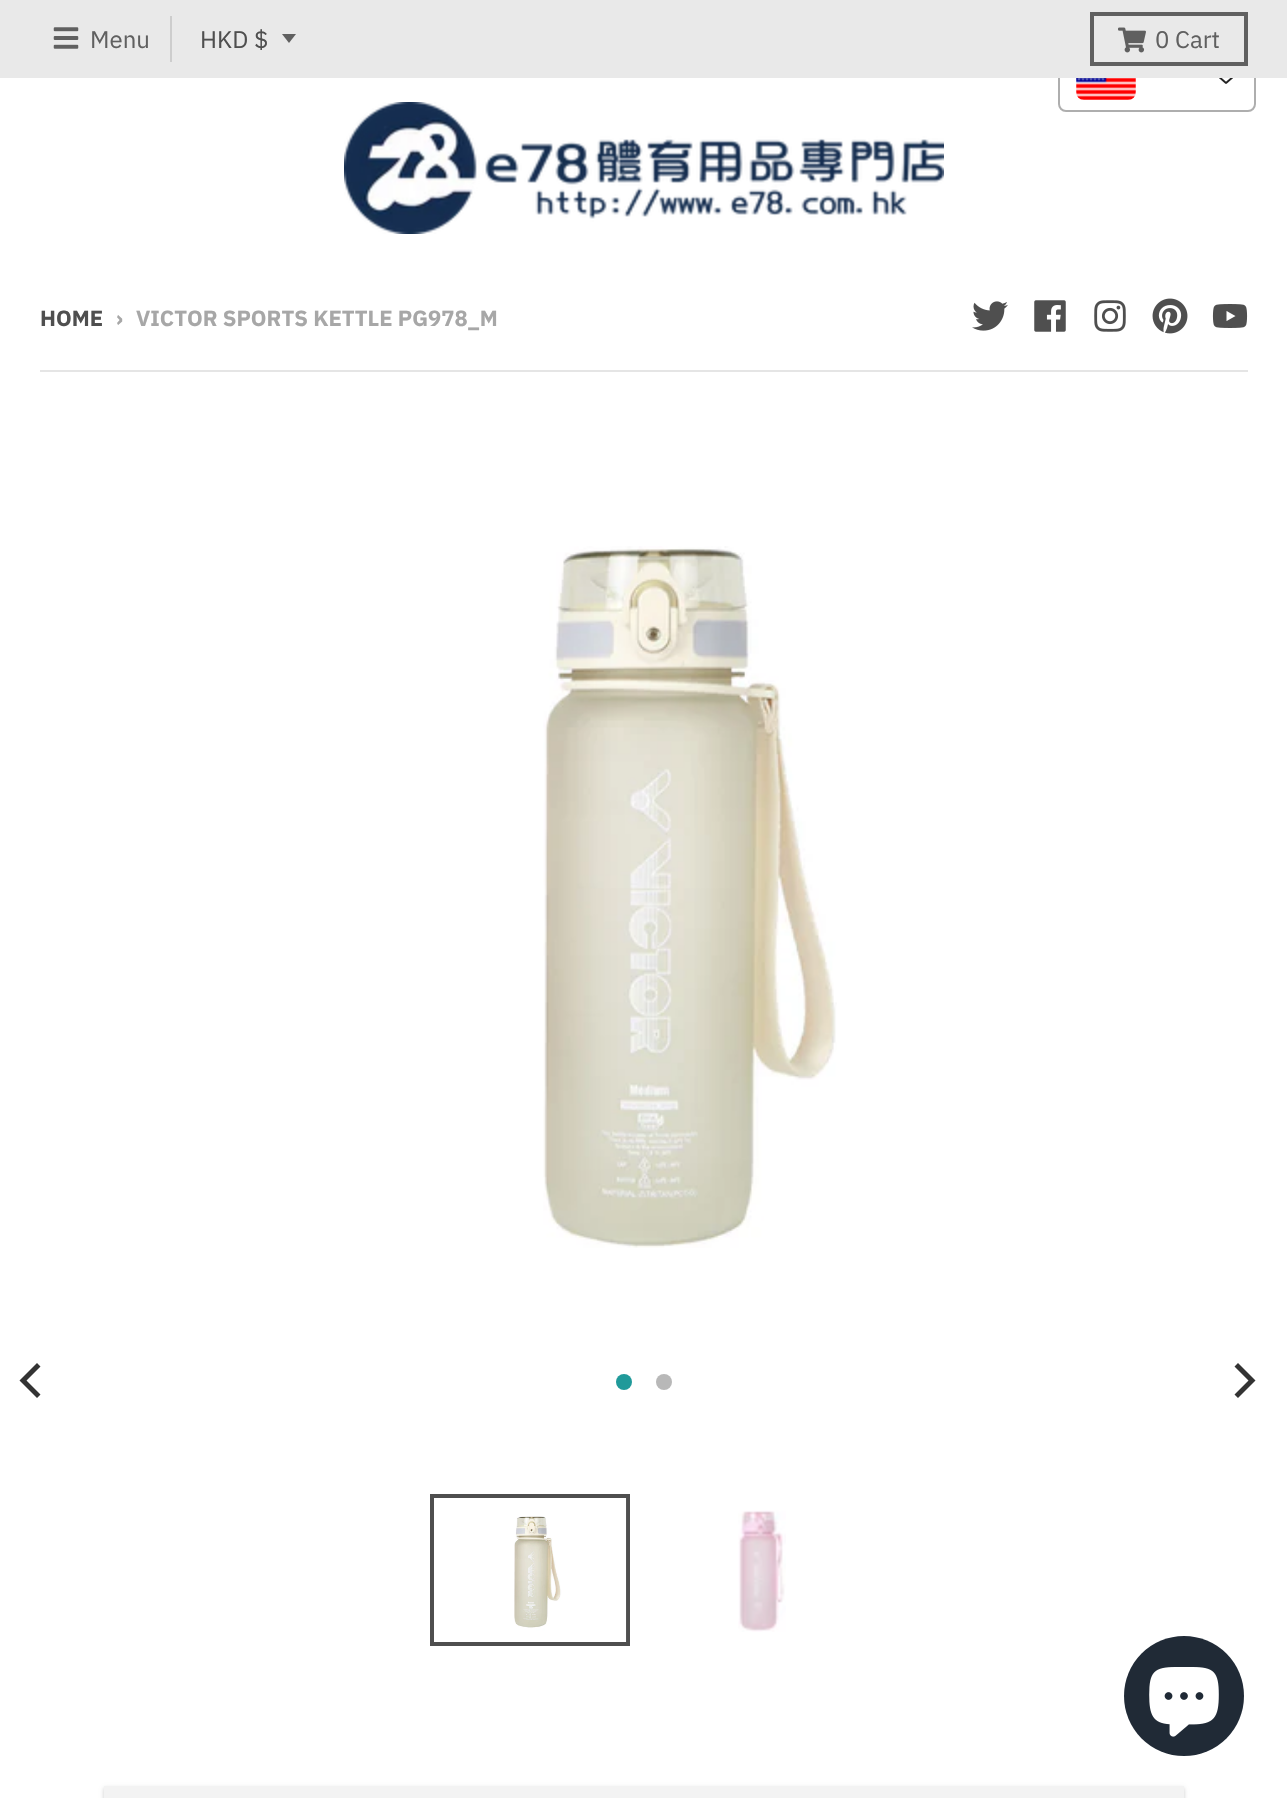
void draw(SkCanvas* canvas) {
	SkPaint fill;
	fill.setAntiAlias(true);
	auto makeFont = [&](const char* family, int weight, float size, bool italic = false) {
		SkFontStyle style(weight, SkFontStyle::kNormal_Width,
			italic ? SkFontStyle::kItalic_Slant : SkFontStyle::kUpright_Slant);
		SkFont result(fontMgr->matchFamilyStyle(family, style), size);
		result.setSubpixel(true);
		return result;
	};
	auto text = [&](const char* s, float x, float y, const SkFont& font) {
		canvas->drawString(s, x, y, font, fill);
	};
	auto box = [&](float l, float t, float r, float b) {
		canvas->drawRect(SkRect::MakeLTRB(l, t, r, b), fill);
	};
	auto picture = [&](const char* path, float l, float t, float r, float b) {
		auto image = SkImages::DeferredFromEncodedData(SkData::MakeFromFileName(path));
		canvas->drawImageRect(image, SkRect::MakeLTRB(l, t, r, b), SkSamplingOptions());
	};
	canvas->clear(0xFFFFFFFF);
	fill.setStyle(SkPaint::kStroke_Style);
	fill.setStrokeWidth(2);
	fill.setColor(0xFFAEAEAE);
	canvas->drawRoundRect(SkRect::MakeLTRB(1059, 49, 1255, 111), 7, 7, fill);
	fill.setStyle(SkPaint::kFill_Style);
	fill.setColor(0xFFE9E9E9);
	box(0, 0, 1287, 78);
	picture("image0.png", 53, 27, 79, 49);
	fill.setColor(0xFFCDCDCD);
	box(170, 16, 172, 62);
	fill.setColor(0xFF606060);
	canvas->drawPath(SkPathBuilder().moveTo(282, 34).lineTo(289, 43).lineTo(296, 34).close().detach(), fill);
	fill.setStyle(SkPaint::kStroke_Style);
	fill.setStrokeWidth(4);
	canvas->drawRect(SkRect::MakeLTRB(1092, 14, 1246, 64), fill);
	picture("image1.png", 1118, 27, 1146, 53);
	picture("image2.png", 344, 102, 944, 234);
	picture("image3.png", 972, 301, 1008, 331);
	picture("image4.png", 1034, 300, 1066, 332);
	picture("image5.png", 1094, 300, 1126, 332);
	picture("image6.png", 1152, 298, 1188, 334);
	picture("image7.png", 1212, 304, 1248, 328);
	fill.setStyle(SkPaint::kFill_Style);
	fill.setColor(0xFFE5E5E5);
	box(40, 370, 1248, 372);
	picture("image8.png", 543, 546, 837, 1248);
	fill.setColor(0xFF333333);
	canvas->drawPath(SkPathBuilder().moveTo(19.5f, 1380.5f).lineTo(37, 1398).lineTo(40.5f, 1394.5f).lineTo(26.5f, 1380.5f).lineTo(40.5f, 1366.5f).lineTo(37, 1363).close().detach(), fill);
	fill.setColor(0xFF209A9A);
	canvas->drawCircle(624, 1382, 8, fill);
	fill.setColor(0xFFB8B8B8);
	canvas->drawCircle(664, 1382, 8, fill);
	fill.setColor(0xFF333333);
	canvas->drawPath(SkPathBuilder().moveTo(1255.5f, 1380.5f).lineTo(1238, 1363).lineTo(1234.5f, 1366.5f).lineTo(1248.5f, 1380.5f).lineTo(1234.5f, 1394.5f).lineTo(1238, 1398).close().detach(), fill);
	fill.setStyle(SkPaint::kStroke_Style);
	fill.setColor(0xFF4F4F4F);
	canvas->drawRect(SkRect::MakeLTRB(432, 1496, 628, 1644), fill);
	picture("image9.png", 514, 1498, 627, 1642);
	picture("image10.png", 738, 1510, 786, 1632);
	fill.setStyle(SkPaint::kFill_Style);
	fill.setColor(0x33000000);
	fill.setMaskFilter(SkMaskFilter::MakeBlur(kNormal_SkBlurStyle, 2));
	canvas->drawRect(SkRect::MakeLTRB(104, 1788, 1184, 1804), fill);
	fill.setMaskFilter(nullptr);
	fill.setColor(0xFFF3F3F3);
	box(104, 1786, 1184, 1798);
	picture("image11.png", 1076, 78, 1136, 100);
	picture("image12.png", 1219, 78, 1233, 84);
	fill.setColor(0xFF202A36);
	canvas->drawCircle(1184, 1696, 60, fill);
	picture("image13.png", 1149, 1667, 1219, 1737);
	auto font1 = makeFont("IBM Plex Sans", 400, 24);
	fill.setColor(0xFF606060);
	text("Menu", 90, 48, font1);
	fill.setColor(0xFF4F4F4F);
	text("HKD $", 200, 48, font1);
	fill.setColor(0xFF606060);
	text("0 Cart", 1155, 48, font1);
	auto font2 = makeFont("IBM Plex Sans", 700, 22);
	fill.setColor(0xFF4F4F4F);
	text("HOME", 40, 326, font2);
	fill.setColor(0xFFA7A7A7);
	text("›", 116, 326, font2);
	text("VICTOR SPORTS KETTLE PG978_M", 136, 326, font2);
}
